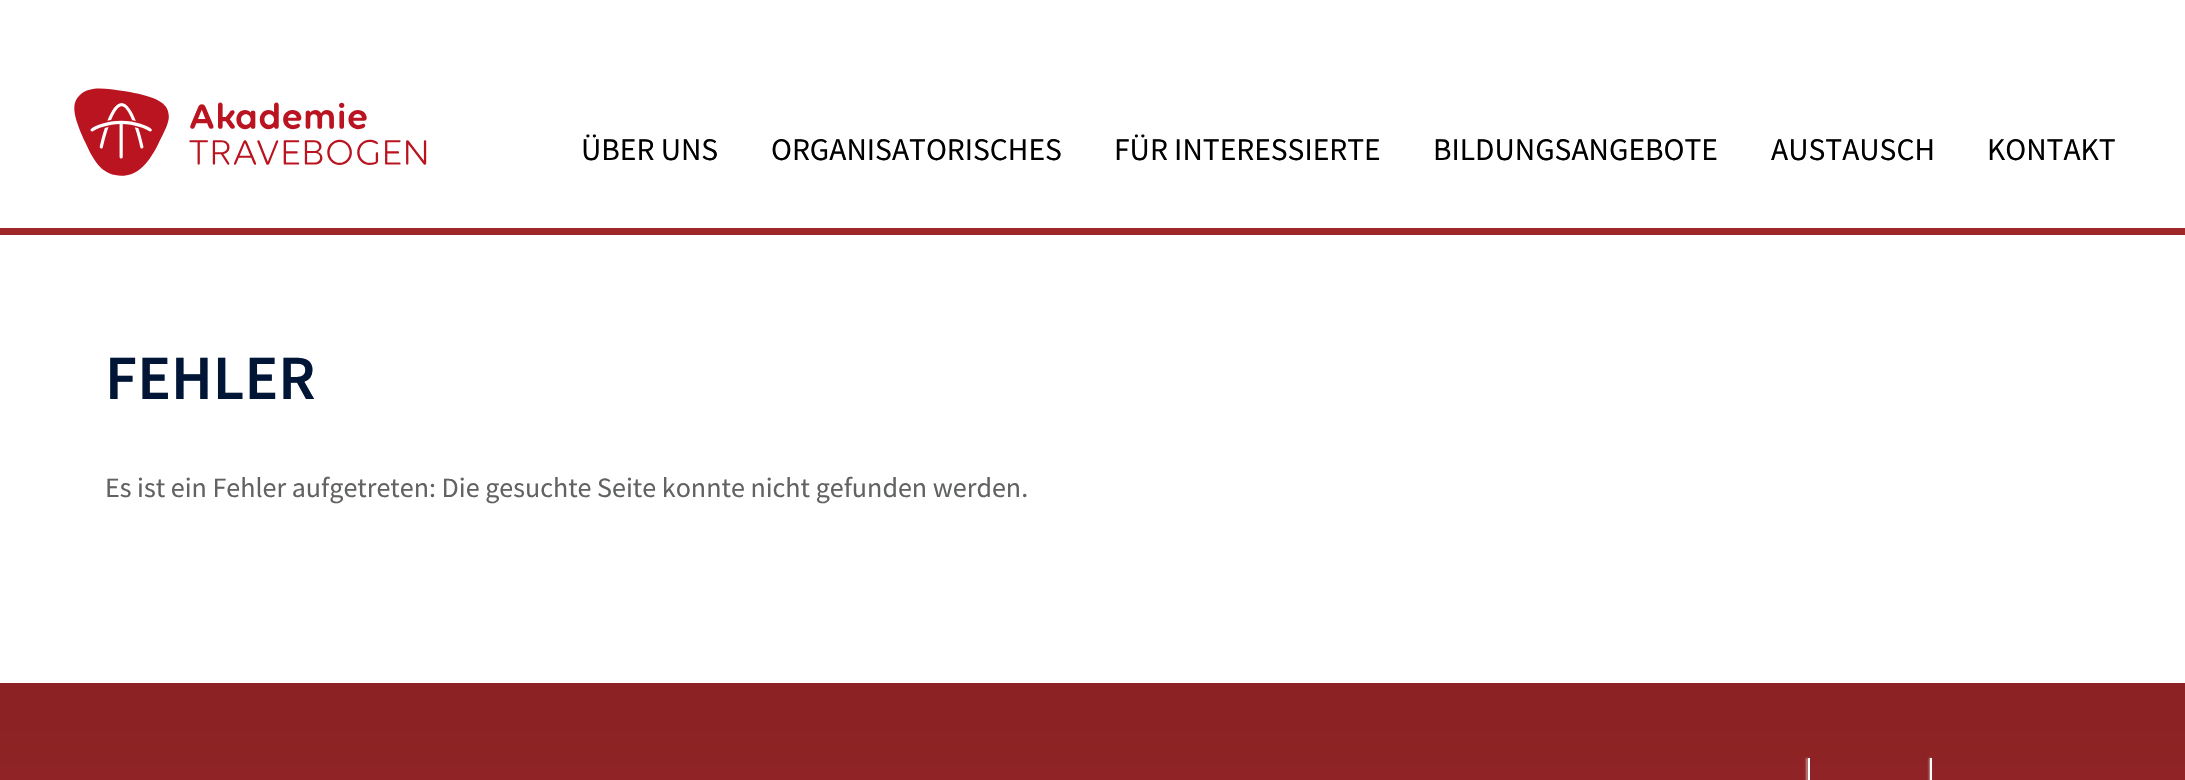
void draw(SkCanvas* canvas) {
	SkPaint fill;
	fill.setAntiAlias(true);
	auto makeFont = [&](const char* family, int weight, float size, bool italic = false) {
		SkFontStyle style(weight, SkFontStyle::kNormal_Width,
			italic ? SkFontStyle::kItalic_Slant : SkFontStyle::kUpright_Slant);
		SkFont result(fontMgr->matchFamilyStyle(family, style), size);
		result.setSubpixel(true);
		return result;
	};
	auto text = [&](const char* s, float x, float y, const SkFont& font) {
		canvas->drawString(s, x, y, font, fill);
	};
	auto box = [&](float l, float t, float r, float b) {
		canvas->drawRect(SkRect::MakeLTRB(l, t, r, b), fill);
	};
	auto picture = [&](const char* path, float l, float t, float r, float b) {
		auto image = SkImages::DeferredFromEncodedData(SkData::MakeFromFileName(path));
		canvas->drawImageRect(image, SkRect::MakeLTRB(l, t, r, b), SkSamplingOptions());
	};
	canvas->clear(0xFFFFFFFF);
	picture("image0.png", 74, 88, 427, 176);
	fill.setColor(0xFF9E2728);
	box(0, 228, 2185, 235);
	{
		const SkColor colors[] = {0xFF8C2224, 0xFF9E2728};
		const float stops[] = {0, 1};
		const SkPoint ends[] = {{1093, 682}, {1093, 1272}};
		fill.setShader(SkGradientShader::MakeLinear(ends, colors, stops, 2, SkTileMode::kClamp));
		fill.setAlpha(255);
	}
	box(0, 683, 2185, 780);
	fill.setShader(nullptr);
	fill.setColor(0xFFC79192);
	fill.setMaskFilter(SkMaskFilter::MakeBlur(kNormal_SkBlurStyle, 1));
	canvas->drawRect(SkRect::MakeLTRB(1806, 758, 1808, 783), fill);
	fill.setMaskFilter(nullptr);
	fill.setColor(0xFFFFFFFF);
	box(1808, 758, 1810, 780);
	fill.setColor(0xFFC79192);
	fill.setMaskFilter(SkMaskFilter::MakeBlur(kNormal_SkBlurStyle, 1));
	canvas->drawRect(SkRect::MakeLTRB(1929, 758, 1931, 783), fill);
	fill.setMaskFilter(nullptr);
	fill.setColor(0xFFFFFFFF);
	box(1930, 758, 1932, 780);
	auto font1 = makeFont("Source Sans Pro", 400, 31.5f);
	fill.setColor(0xFF000000);
	text("ÜBER UNS", 581, 160, font1);
	text("ORGANISATORISCHES", 771, 160, font1);
	text("FÜR INTERESSIERTE", 1114, 160, font1);
	text("BILDUNGSANGEBOTE", 1433, 160, font1);
	text("AUSTAUSCH", 1771, 160, font1);
	text("KONTAKT", 1987, 160, font1);
	auto font2 = makeFont("Source Sans Pro", 600, 63);
	fill.setColor(0xFF011536);
	text("FEHLER", 105, 399, font2);
	auto font3 = makeFont("Source Sans Pro", 400, 28);
	fill.setColor(0xFF616263);
	text("Es ist ein Fehler aufgetreten: Die gesuchte Seite konnte nicht gefunden werden.", 105, 497, font3);
}
